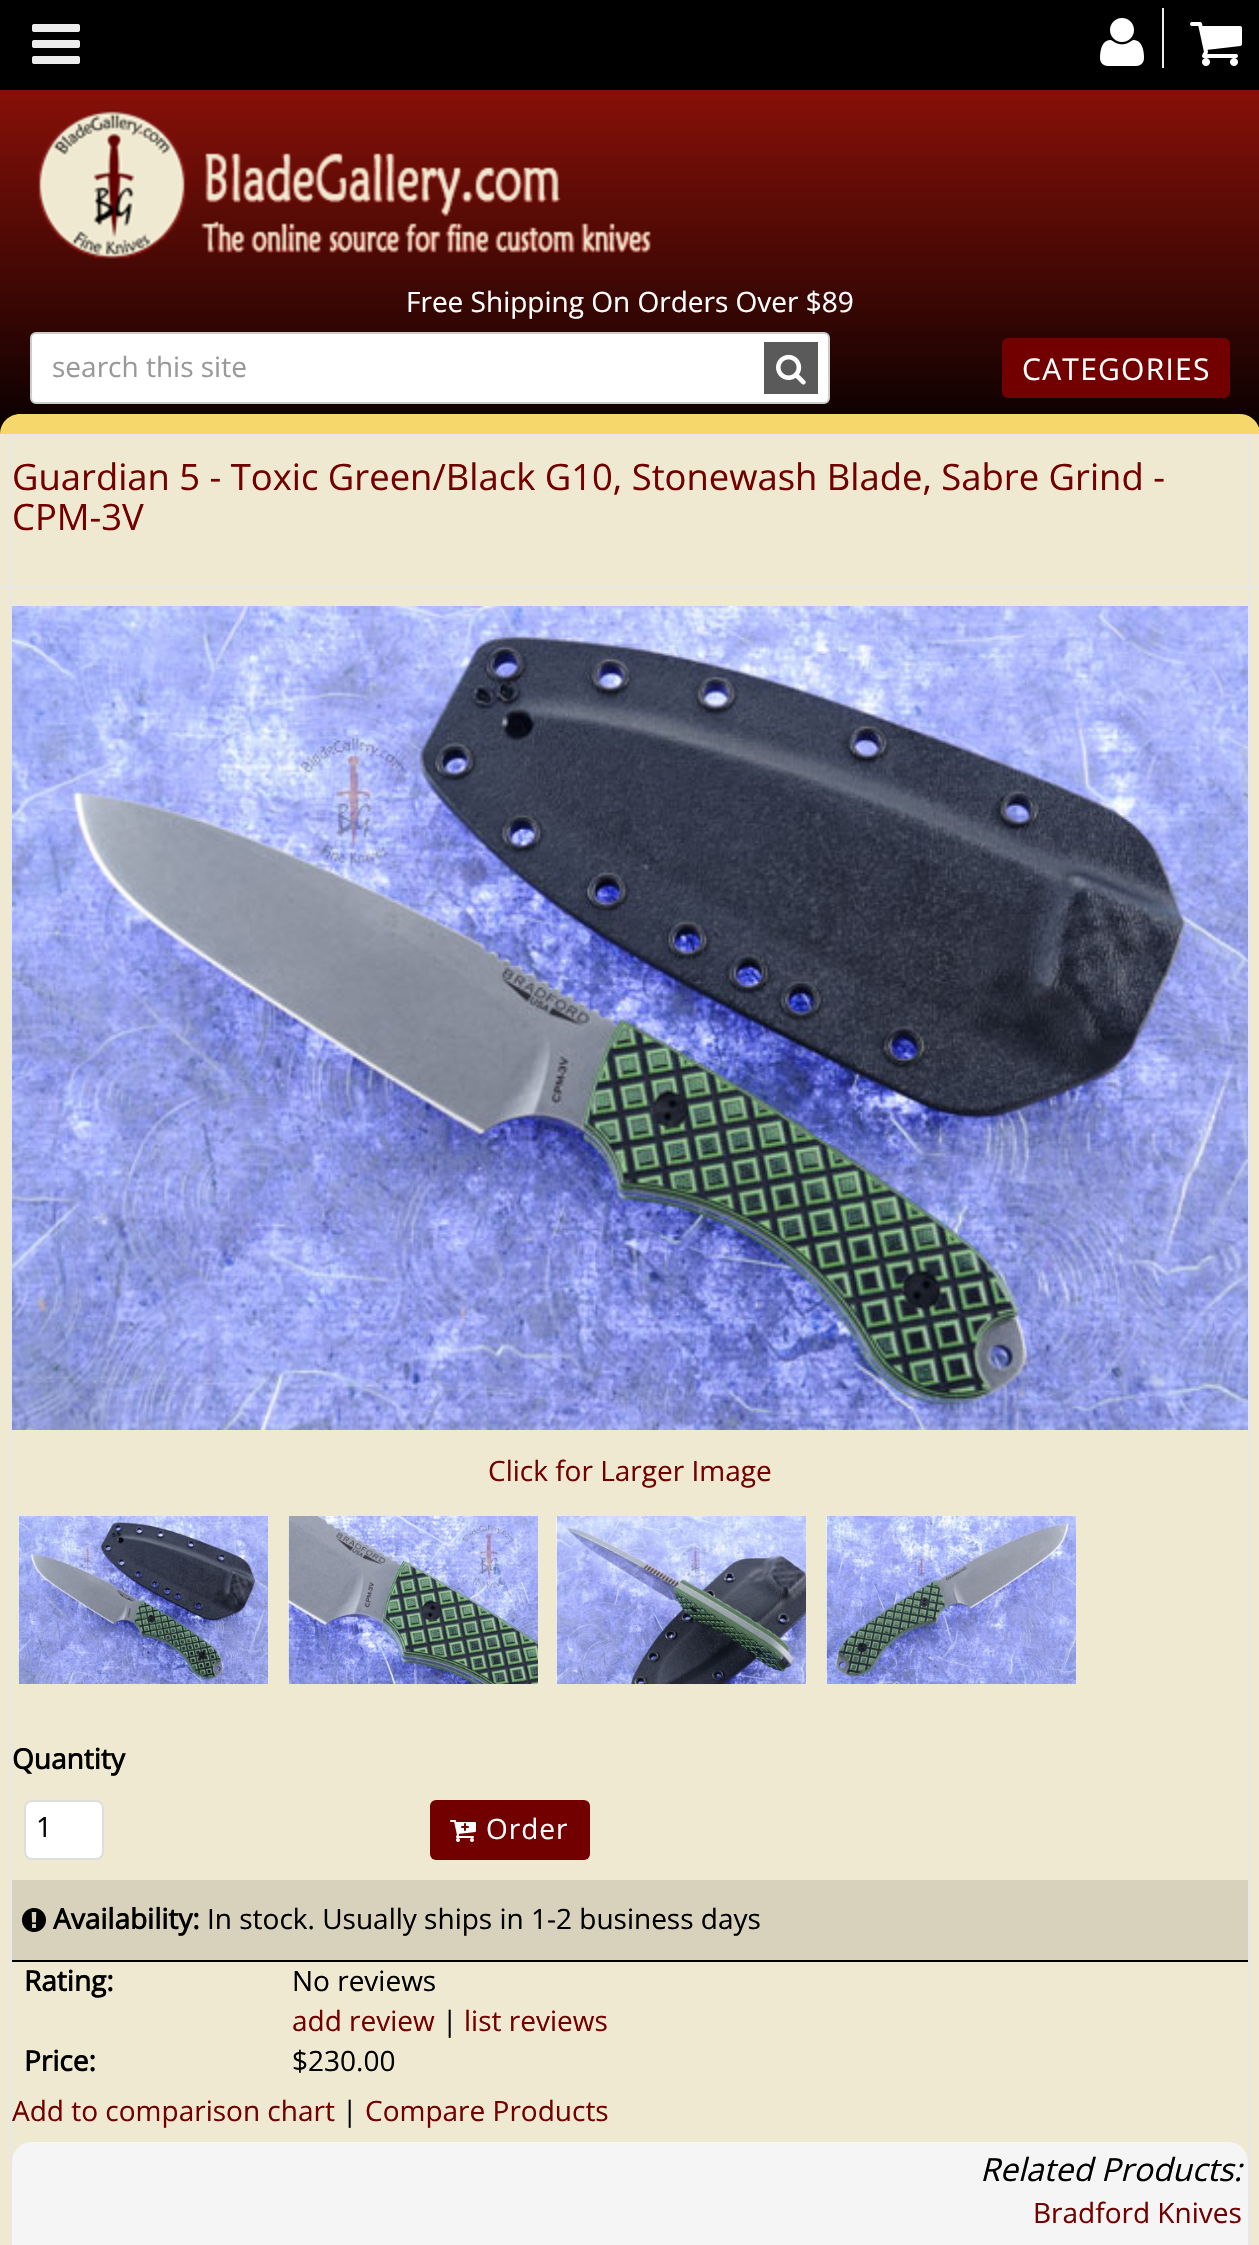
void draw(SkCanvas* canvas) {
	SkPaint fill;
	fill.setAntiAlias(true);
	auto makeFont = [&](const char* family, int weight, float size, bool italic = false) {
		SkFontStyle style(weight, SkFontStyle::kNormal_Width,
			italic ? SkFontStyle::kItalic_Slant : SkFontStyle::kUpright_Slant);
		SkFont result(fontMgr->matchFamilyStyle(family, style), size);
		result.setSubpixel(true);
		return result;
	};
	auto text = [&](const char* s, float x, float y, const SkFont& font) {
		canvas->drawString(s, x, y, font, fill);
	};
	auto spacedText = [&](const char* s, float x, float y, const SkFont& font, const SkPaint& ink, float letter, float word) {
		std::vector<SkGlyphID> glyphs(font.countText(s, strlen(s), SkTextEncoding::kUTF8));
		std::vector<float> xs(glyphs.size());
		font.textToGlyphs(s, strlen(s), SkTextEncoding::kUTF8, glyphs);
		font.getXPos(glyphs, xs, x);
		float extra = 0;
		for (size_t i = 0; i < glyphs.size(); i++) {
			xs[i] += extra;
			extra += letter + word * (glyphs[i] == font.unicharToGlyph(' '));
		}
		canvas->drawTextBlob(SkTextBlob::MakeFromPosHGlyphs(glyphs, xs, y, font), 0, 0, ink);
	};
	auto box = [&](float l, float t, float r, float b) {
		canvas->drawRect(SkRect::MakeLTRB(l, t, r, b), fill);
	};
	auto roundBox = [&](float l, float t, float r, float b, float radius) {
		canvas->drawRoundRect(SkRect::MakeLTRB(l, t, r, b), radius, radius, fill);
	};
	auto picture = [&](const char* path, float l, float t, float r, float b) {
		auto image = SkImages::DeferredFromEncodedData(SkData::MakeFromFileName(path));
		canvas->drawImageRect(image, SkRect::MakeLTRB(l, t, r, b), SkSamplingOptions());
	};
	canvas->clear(0xFFFFFFFF);
	{
		const SkColor colors[] = {0xFF841008, 0xFF841008, 0xFF000000, 0x00000000};
		const float stops[] = {0, 0.2f, 0.93f, 0.94f};
		const SkPoint ends[] = {{630, 0}, {630, 490}};
		fill.setShader(SkGradientShader::MakeLinear(ends, colors, stops, 4, SkTileMode::kClamp));
		fill.setAlpha(255);
	}
	box(0, 90, 1259, 434);
	fill.setShader(nullptr);
	fill.setColor(0xFF000000);
	box(0, 0, 1259, 90);
	picture("image0.png", 32, 24, 80, 64);
	fill.setColor(0xFFECECEC);
	box(1162, 8, 1164, 68);
	picture("image1.png", 1100, 18, 1144, 66);
	picture("image2.png", 1190, 22, 1242, 66);
	picture("image3.png", 37, 110, 651, 259);
	fill.setColor(0xFFFFFFFF);
	canvas->drawRoundRect(SkRect::MakeLTRB(31, 333, 829, 403), 5, 5, fill);
	fill.setStyle(SkPaint::kStroke_Style);
	fill.setStrokeWidth(2);
	fill.setColor(0xFFCCCCCC);
	canvas->drawRoundRect(SkRect::MakeLTRB(31, 333, 829, 403), 5, 5, fill);
	fill.setStyle(SkPaint::kFill_Style);
	fill.setColor(0xFF5A5A5A);
	box(764, 342, 818, 394);
	picture("image4.png", 776, 354, 806, 385);
	fill.setColor(0xFF730000);
	roundBox(1002, 338, 1230, 398, 6);
	fill.setColor(0xFFF6D76B);
	canvas->drawPath(SkPathBuilder().moveTo(20, 414).lineTo(1240, 414).cubicTo(1251, 414, 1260, 423, 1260, 434).lineTo(0, 434).cubicTo(0, 423, 9, 414, 20, 414).close().detach(), fill);
	fill.setColor(0xFFF0E9D1);
	box(0, 434, 1259, 2245);
	fill.setStyle(SkPaint::kStroke_Style);
	fill.setColor(0xFFE7E7E7);
	canvas->drawRect(SkRect::MakeLTRB(11, 435, 1249, 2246), fill);
	fill.setStyle(SkPaint::kFill_Style);
	box(0, 586, 1259, 588);
	picture("image5.png", 12, 606, 1248, 1430);
	picture("image6.png", 18, 1516, 268, 1684);
	picture("image7.png", 288, 1516, 538, 1684);
	picture("image8.png", 556, 1516, 806, 1684);
	picture("image9.png", 826, 1516, 1076, 1684);
	fill.setColor(0xFFFFFFFF);
	canvas->drawRoundRect(SkRect::MakeLTRB(25, 1801, 103, 1859), 7, 7, fill);
	fill.setStyle(SkPaint::kStroke_Style);
	fill.setColor(0xFFDDDDDD);
	canvas->drawRoundRect(SkRect::MakeLTRB(25, 1801, 103, 1859), 7, 7, fill);
	fill.setStyle(SkPaint::kFill_Style);
	fill.setColor(0xFF730000);
	roundBox(430, 1800, 590, 1860, 6);
	picture("image10.png", 450, 1820, 476, 1842);
	fill.setColor(0xFFD8D1BC);
	box(12, 1880, 1248, 1960);
	fill.setColor(0xFF000000);
	box(12, 1960, 1248, 1962);
	picture("image11.png", 22, 1908, 46, 1932);
	fill.setColor(0xFFF5F5F5);
	roundBox(12, 2142, 1248, 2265, 20);
	auto font1 = makeFont("Open Sans", 400, 28);
	fill.setColor(0xFFFFFFFF);
	text("Free Shipping On Orders Over $89", 406, 312, font1);
	fill.setColor(0xFF999999);
	text("search this site", 52, 377, font1);
	auto font2 = makeFont("Open Sans", 400, 30);
	fill.setColor(0xFFFFFFFF);
	spacedText("CATEGORIES", 1022, 380, font2, fill, 1.25f, 0);
	auto font3 = makeFont("Open Sans", 400, 36.4f);
	fill.setColor(0xFF730000);
	text("Guardian 5 - Toxic Green/Black G10, Stonewash Blade, Sabre Grind -", 12, 490, font3);
	text("CPM-3V", 12, 530, font3);
	text("Click for Larger Image", 488, 1481, font1);
	auto font4 = makeFont("Open Sans", 700, 28);
	fill.setColor(0xFF000000);
	text("Quantity", 12, 1769, font4);
	text("1", 36, 1837, font1);
	fill.setColor(0xFFFFFFFF);
	spacedText("Order", 486, 1839, font1, fill, 1, 0);
	fill.setColor(0xFF000000);
	text("Availability:", 53, 1929, font4);
	text("In stock. Usually ships in 1-2 business days", 207, 1929, font1);
	text("Rating:", 24, 1991, font4);
	text("No reviews", 292, 1991, font1);
	fill.setColor(0xFF730000);
	text("add review", 292, 2031, font1);
	fill.setColor(0xFF000000);
	text("|", 442, 2031, font1);
	fill.setColor(0xFF730000);
	text("list reviews", 464, 2031, font1);
	fill.setColor(0xFF000000);
	text("Price:", 24, 2071, font4);
	text("$230.00", 292, 2071, font1);
	fill.setColor(0xFF730000);
	text("Add to comparison chart", 12, 2121, font1);
	fill.setColor(0xFF000000);
	text("|", 342, 2121, font1);
	fill.setColor(0xFF730000);
	text("Compare Products", 365, 2121, font1);
	auto font5 = makeFont("Open Sans", 400, 32, true);
	fill.setColor(0xFF000000);
	text("Related Products:", 980, 2181, font5);
	fill.setColor(0xFF730000);
	text("Bradford Knives", 1033, 2223, font1);
}
